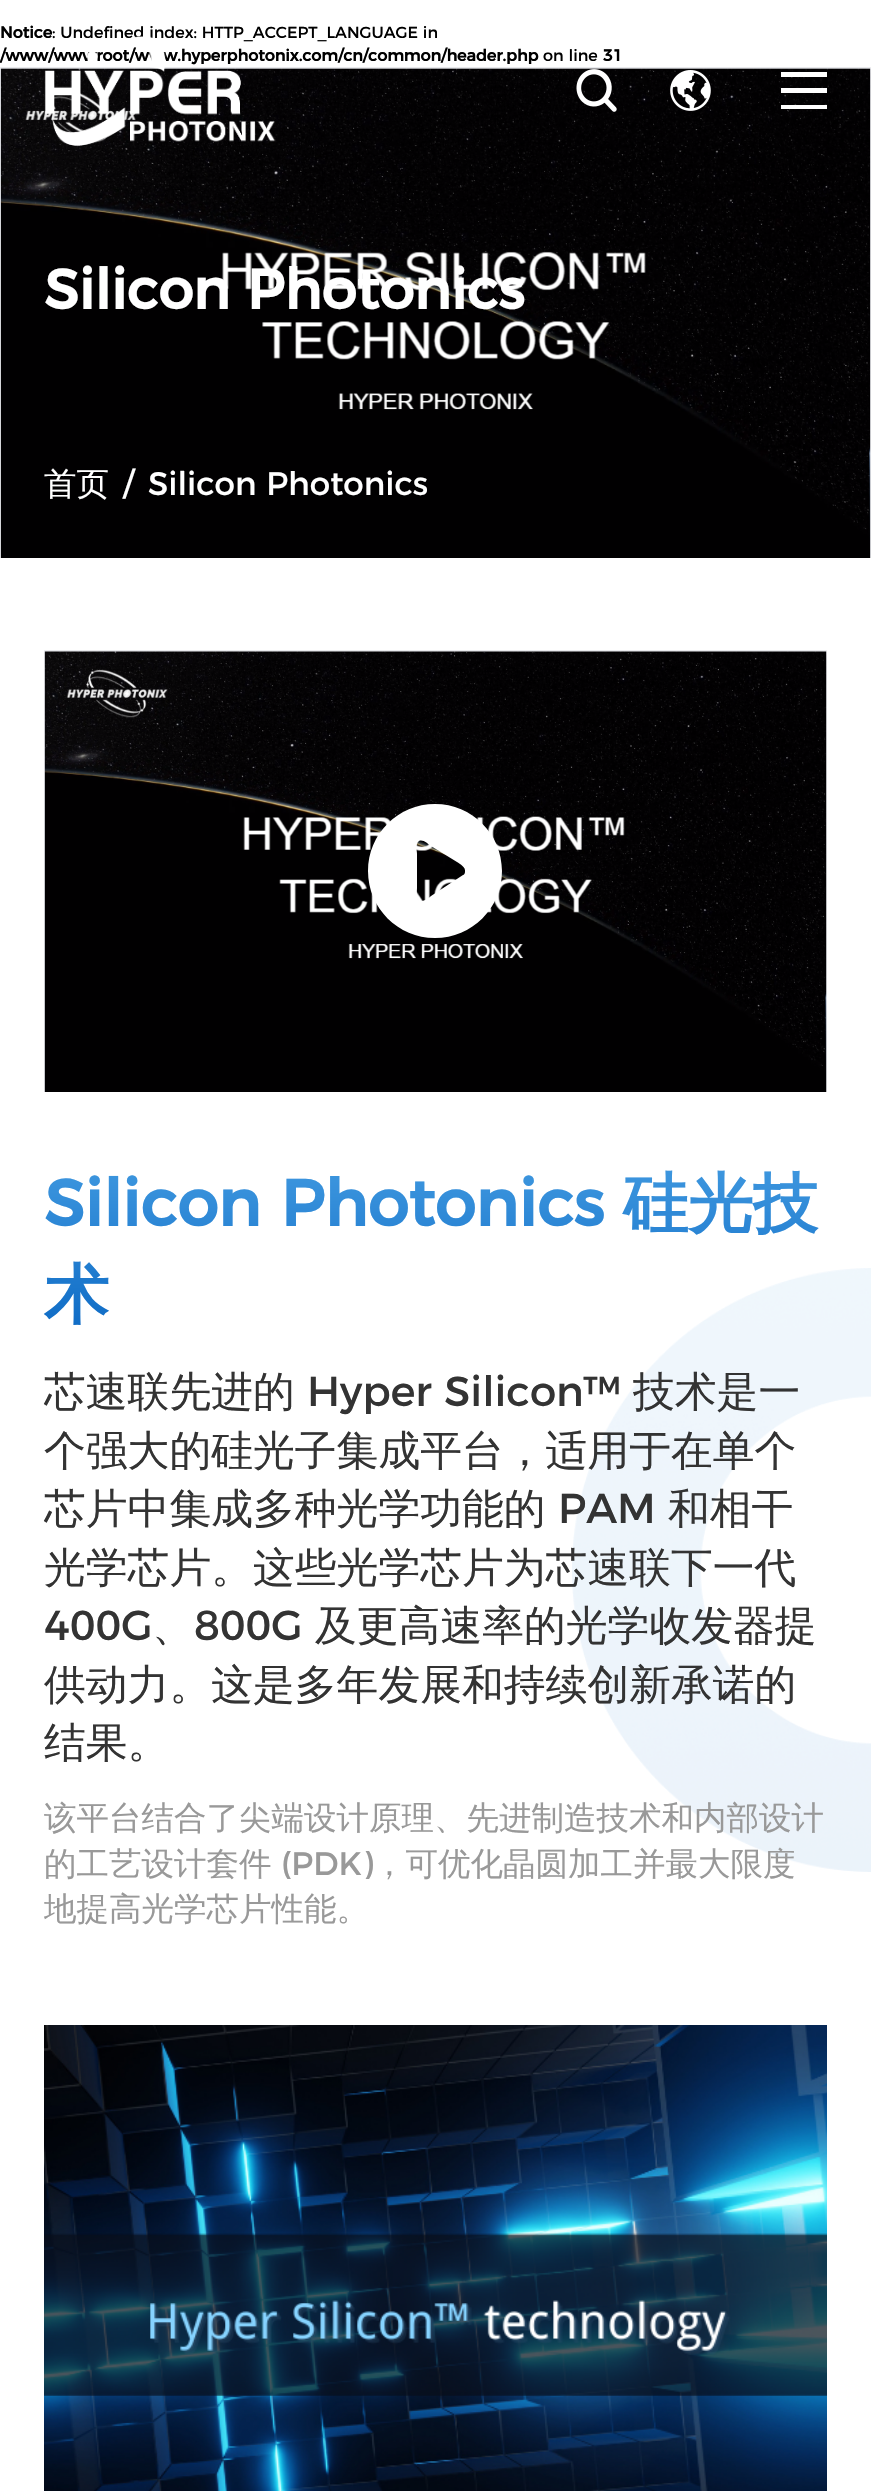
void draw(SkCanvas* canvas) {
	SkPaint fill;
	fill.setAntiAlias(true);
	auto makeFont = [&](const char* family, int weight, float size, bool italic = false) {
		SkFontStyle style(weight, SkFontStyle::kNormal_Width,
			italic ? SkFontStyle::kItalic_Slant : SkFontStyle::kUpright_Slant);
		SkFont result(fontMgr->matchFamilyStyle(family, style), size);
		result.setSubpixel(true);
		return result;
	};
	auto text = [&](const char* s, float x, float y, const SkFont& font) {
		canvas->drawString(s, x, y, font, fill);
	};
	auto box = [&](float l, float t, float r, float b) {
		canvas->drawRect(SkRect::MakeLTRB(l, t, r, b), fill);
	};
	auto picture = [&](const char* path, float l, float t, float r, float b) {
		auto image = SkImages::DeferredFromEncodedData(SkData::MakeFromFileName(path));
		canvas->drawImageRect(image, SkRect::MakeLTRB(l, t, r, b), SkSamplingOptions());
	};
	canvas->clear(0xFFFFFFFF);
	picture("image3.png", 0, 67, 871, 558);
	picture("image1.png", 576, 69, 617, 112);
	picture("image2.png", 670, 70, 711, 111);
	fill.setColor(0xFFFFFFFF);
	box(781, 72, 827, 77);
	box(781, 88, 827, 93);
	box(781, 105, 827, 109);
	picture("image4.png", 44, 650, 827, 1092);
	canvas->drawPath(SkPathBuilder().moveTo(435, 804).cubicTo(398, 804, 368, 834, 368, 871).cubicTo(368, 908, 398, 938, 435, 938).cubicTo(472, 938, 502, 908, 502, 871).cubicTo(502, 834, 472, 804, 435, 804).close().moveTo(463, 875).lineTo(431, 896).cubicTo(430, 897, 425, 901, 422, 901).cubicTo(415, 902, 417, 892, 417, 888).lineTo(417, 854).cubicTo(417, 851, 415, 844, 419, 841).cubicTo(423, 839, 428, 844, 431, 846).lineTo(457, 862).cubicTo(460, 864, 466, 867, 465, 872).cubicTo(465, 873, 464, 875, 463, 875).close().detach(), fill);
	picture("image5.png", 572, 1268, 871, 1872);
	picture("image6.png", 44, 2025, 827, 2491);
	auto font1 = makeFont("Montserrat", 700, 16);
	fill.setColor(0xFF000000);
	text("Notice", 0, 38, font1);
	auto font2 = makeFont("Montserrat", 400, 16);
	text(": Undefined index: HTTP_ACCEPT_LANGUAGE in", 52, 38, font2);
	text("/www/wwwroot/www.hyperphotonix.com/cn/common/header.php", 0, 61, font1);
	picture("image0.png", 44, 36, 276, 146);
	text("on line", 543, 61, font2);
	text("31", 603, 61, font1);
	auto font3 = makeFont("Montserrat", 700, 55.75f);
	fill.setColor(0xFFFFFFFF);
	text("Silicon Photonics", 44, 309, font3);
	auto font4 = makeFont("WenQuanYi Zen Hei", 500, 32.5f);
	text("首页", 44, 495, font4);
	auto font5 = makeFont("Montserrat", 400, 32.5f);
	text("/", 123, 495, font5);
	text("Silicon Photonics", 148, 495, font5);
	auto font6 = makeFont("Montserrat", 700, 65);
	{
		const SkColor colors[] = {0xFF4099E0, 0xFF0C69C4};
		const float stops[] = {0, 1};
		const SkPoint ends[] = {{435, 1157}, {435, 1339}};
		fill.setShader(SkGradientShader::MakeLinear(ends, colors, stops, 2, SkTileMode::kClamp));
		fill.setAlpha(255);
	}
	text("Silicon Photonics", 44, 1226, font6);
	auto font7 = makeFont("WenQuanYi Zen Hei", 700, 65);
	text("硅光技", 623, 1226, font7);
	text("术", 44, 1317, font7);
	auto font8 = makeFont("WenQuanYi Zen Hei", 500, 41.8f);
	fill.setShader(nullptr);
	fill.setColor(0xFF333333);
	text("芯速联先进的", 44, 1406, font8);
	auto font9 = makeFont("Montserrat", 400, 41.8f);
	text("Hyper Silicon™", 307, 1406, font9);
	text("技术是一", 633, 1406, font8);
	text("个强大的硅光子集成平台，适用于在单个", 44, 1465, font8);
	text("芯片中集成多种光学功能的", 44, 1523, font8);
	text("PAM", 558, 1523, font9);
	text("和相干", 668, 1523, font8);
	text("光学芯片。这些光学芯片为芯速联下一代", 44, 1582, font8);
	text("400G", 44, 1640, font9);
	text("、", 152, 1640, font8);
	text("800G", 194, 1640, font9);
	text("及更高速率的光学收发器提", 315, 1640, font8);
	text("供动力。这是多年发展和持续创新承诺的", 44, 1699, font8);
	text("结果。", 44, 1757, font8);
	fill.setColor(0xFF999999);
	text("该平台结合了尖端设计原理、先进制造技术和内部设计", 44, 1829, font4);
	text("的工艺设计套件", 44, 1875, font4);
	text("(PDK)", 281, 1875, font5);
	text("，可优化晶圆加工并最大限度", 373, 1875, font4);
	text("地提高光学芯片性能。", 44, 1920, font4);
}
